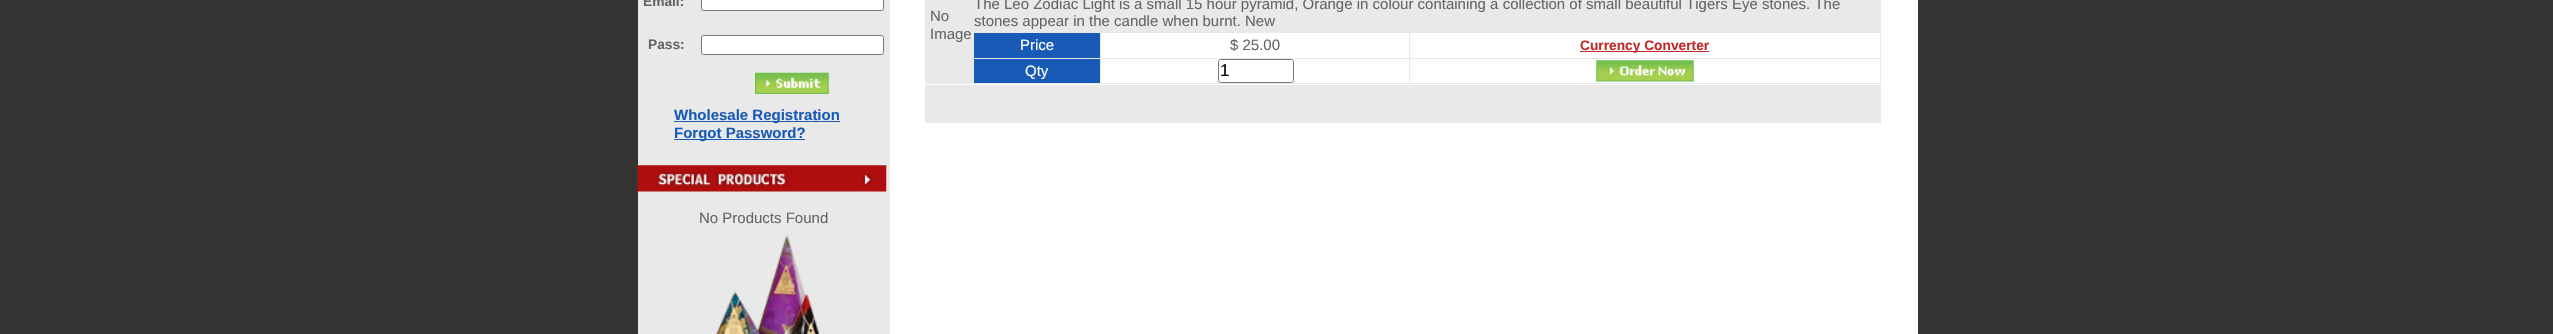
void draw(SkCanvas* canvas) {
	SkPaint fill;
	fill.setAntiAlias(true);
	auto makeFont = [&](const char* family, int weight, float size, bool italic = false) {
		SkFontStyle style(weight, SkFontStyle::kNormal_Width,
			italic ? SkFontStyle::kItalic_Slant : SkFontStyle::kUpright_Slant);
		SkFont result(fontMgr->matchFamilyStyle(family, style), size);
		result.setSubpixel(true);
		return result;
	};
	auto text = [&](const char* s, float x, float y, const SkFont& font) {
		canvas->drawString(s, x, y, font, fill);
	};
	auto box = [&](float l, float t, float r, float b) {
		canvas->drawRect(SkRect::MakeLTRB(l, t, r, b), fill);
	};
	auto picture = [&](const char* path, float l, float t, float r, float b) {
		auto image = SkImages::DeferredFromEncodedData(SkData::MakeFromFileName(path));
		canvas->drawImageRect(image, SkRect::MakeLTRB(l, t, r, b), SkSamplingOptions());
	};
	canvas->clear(0xFF333333);
	fill.setColor(0xFFFFFFFF);
	box(890, 0, 1918, 334);
	fill.setColor(0xFFE9E9E9);
	box(638, 0, 890, 334);
	fill.setColor(0xFFFFFFFF);
	canvas->drawRoundRect(SkRect::MakeLTRB(701.5f, -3.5f, 883.5f, 10.5f), 2, 2, fill);
	fill.setStyle(SkPaint::kStroke_Style);
	fill.setStrokeWidth(1);
	fill.setColor(0xFF767676);
	canvas->drawRoundRect(SkRect::MakeLTRB(701.5f, -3.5f, 883.5f, 10.5f), 2, 2, fill);
	fill.setStyle(SkPaint::kFill_Style);
	fill.setColor(0xFFFFFFFF);
	canvas->drawRoundRect(SkRect::MakeLTRB(701.5f, 35.5f, 883.5f, 54.5f), 2, 2, fill);
	fill.setStyle(SkPaint::kStroke_Style);
	fill.setColor(0xFF767676);
	canvas->drawRoundRect(SkRect::MakeLTRB(701.5f, 35.5f, 883.5f, 54.5f), 2, 2, fill);
	picture("image0.png", 755, 72, 829, 94);
	fill.setStyle(SkPaint::kFill_Style);
	fill.setColor(0xFF185BB6);
	box(674, 121, 840, 122);
	box(674, 139, 805, 140);
	picture("image1.png", 637, 165, 887, 192);
	fill.setColor(0xFFE9E9E9);
	box(925, 0, 1881, 84);
	fill.setColor(0xFF185BB6);
	box(974, 33, 1100, 58);
	fill.setColor(0xFFFFFFFF);
	box(1101, 33, 1409, 58);
	box(1410, 33, 1880, 58);
	fill.setColor(0xFFC22929);
	box(1580, 51, 1709, 52);
	fill.setColor(0xFF185BB6);
	box(974, 59, 1100, 83);
	fill.setColor(0xFFFFFFFF);
	box(1101, 59, 1409, 83);
	fill.setStyle(SkPaint::kStroke_Style);
	fill.setColor(0xFF767676);
	canvas->drawRoundRect(SkRect::MakeLTRB(1218.5f, 59.5f, 1293.5f, 82.5f), 2, 2, fill);
	fill.setStyle(SkPaint::kFill_Style);
	fill.setColor(0xFFFFFFFF);
	box(1410, 59, 1880, 83);
	picture("image2.png", 1596, 60, 1694, 82);
	fill.setColor(0xFFE9E9E9);
	box(925, 85, 1881, 123);
	picture("image3.png", 709, 234, 825, 334);
	auto font1 = makeFont("Liberation Sans", 700, 13.75f);
	fill.setColor(0xFF666666);
	text("Email:", 643, 6, font1);
	text("Pass:", 648, 49, font1);
	auto font2 = makeFont("Liberation Sans", 700, 15);
	fill.setColor(0xFF185BB6);
	text("Wholesale Registration", 674, 120, font2);
	text("Forgot Password?", 674, 138, font2);
	auto font3 = makeFont("Liberation Sans", 400, 15);
	fill.setColor(0xFF666666);
	text("No Products Found", 699, 223, font3);
	text("No", 930, 21, font3);
	text("Image", 930, 39, font3);
	text("The Leo Zodiac Light is a small 15 hour pyramid, Orange in colour containing a collection of small beautiful Tigers Eye stones. The", 974, 9, font3);
	text("stones appear in the candle when burnt. New", 974, 26, font3);
	fill.setColor(0xFFFFFFFF);
	text("Price", 1020, 50, font3);
	fill.setColor(0xFF666666);
	text("$ 25.00", 1230, 50, font3);
	fill.setColor(0xFFC22929);
	text("Currency Converter", 1580, 50, font1);
	fill.setColor(0xFFFFFFFF);
	text("Qty", 1025, 76, font3);
	auto font4 = makeFont("Liberation Sans", 400, 17);
	fill.setColor(0xFF000000);
	text("1", 1220, 76, font4);
}
